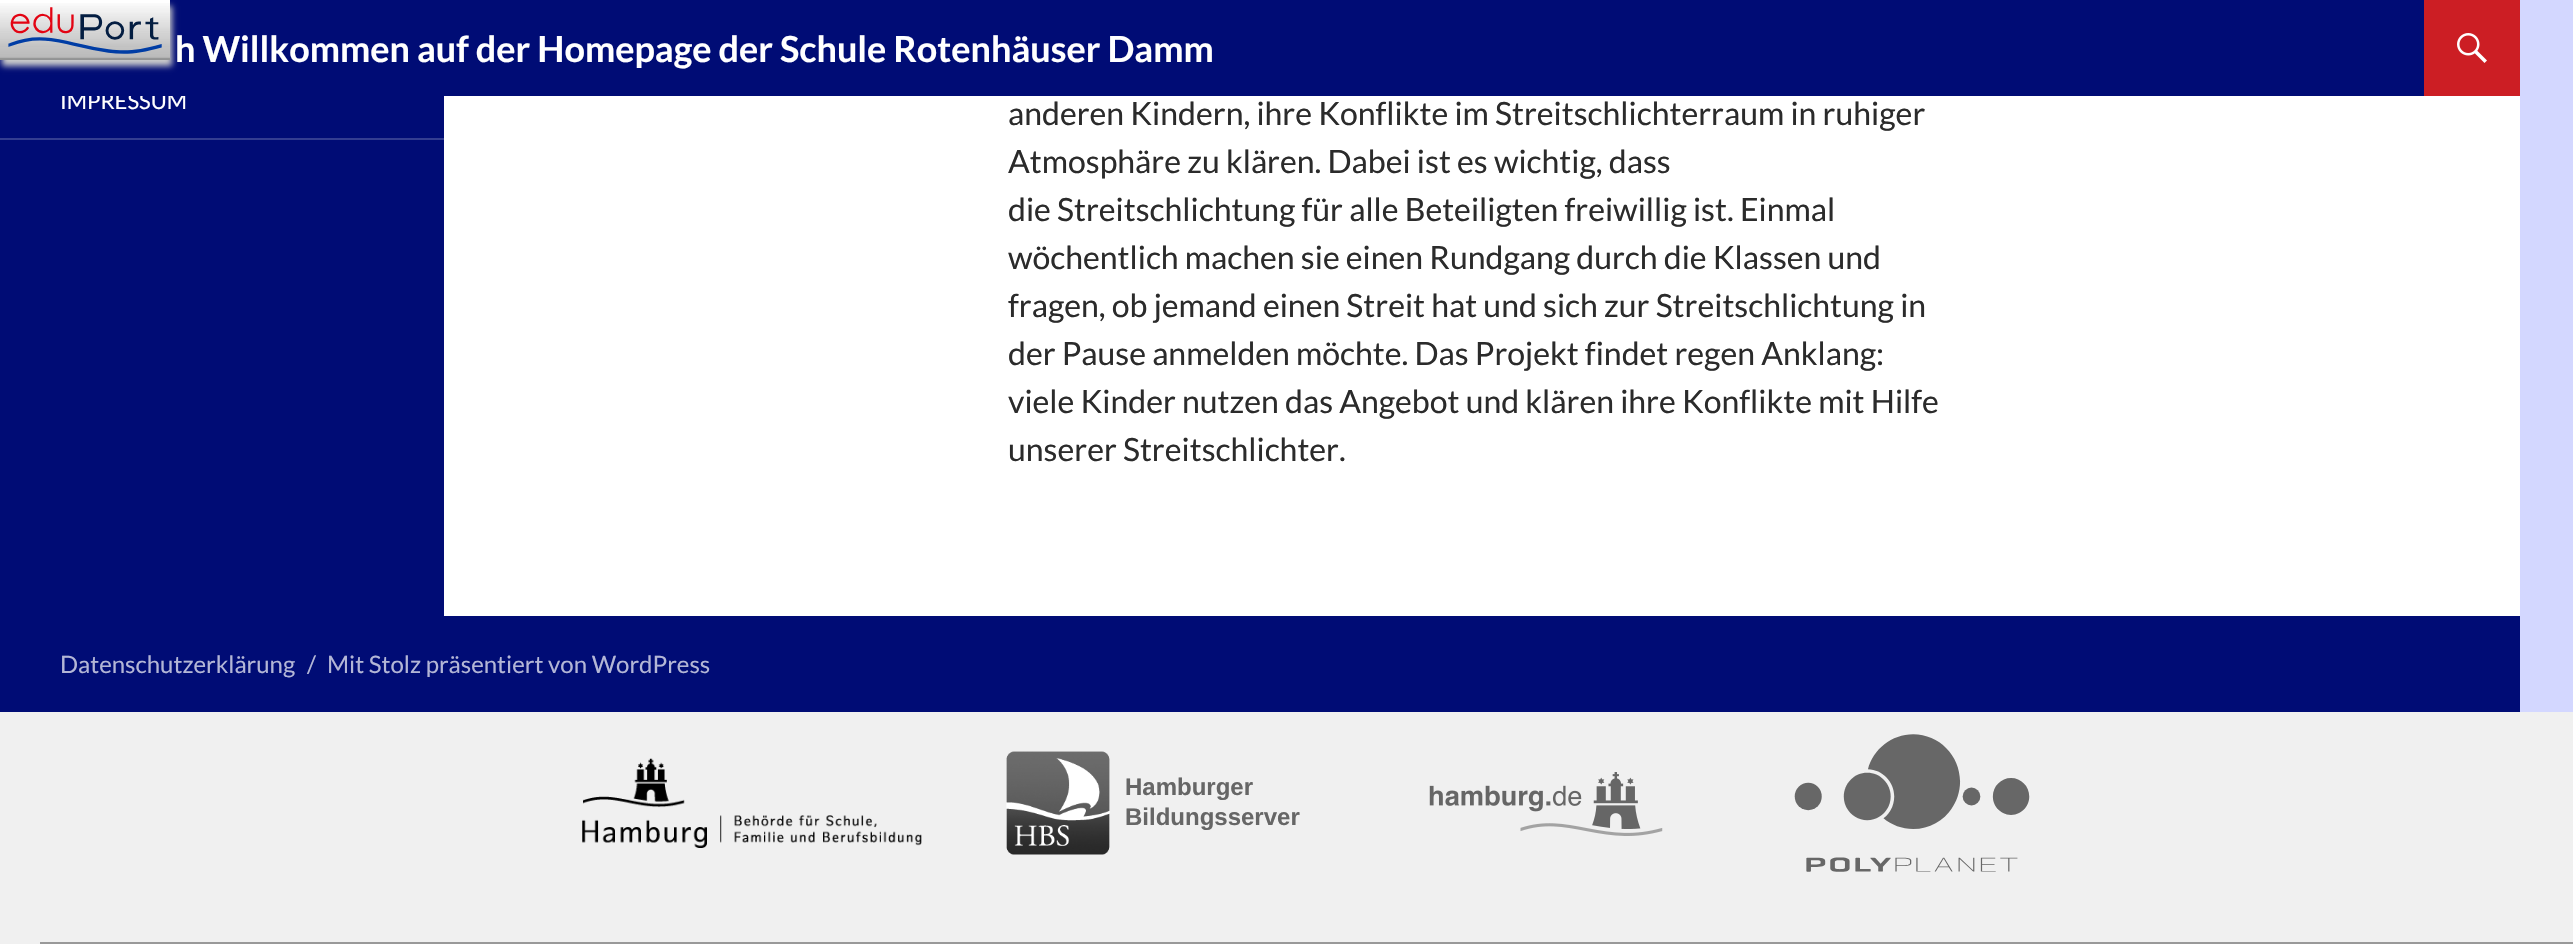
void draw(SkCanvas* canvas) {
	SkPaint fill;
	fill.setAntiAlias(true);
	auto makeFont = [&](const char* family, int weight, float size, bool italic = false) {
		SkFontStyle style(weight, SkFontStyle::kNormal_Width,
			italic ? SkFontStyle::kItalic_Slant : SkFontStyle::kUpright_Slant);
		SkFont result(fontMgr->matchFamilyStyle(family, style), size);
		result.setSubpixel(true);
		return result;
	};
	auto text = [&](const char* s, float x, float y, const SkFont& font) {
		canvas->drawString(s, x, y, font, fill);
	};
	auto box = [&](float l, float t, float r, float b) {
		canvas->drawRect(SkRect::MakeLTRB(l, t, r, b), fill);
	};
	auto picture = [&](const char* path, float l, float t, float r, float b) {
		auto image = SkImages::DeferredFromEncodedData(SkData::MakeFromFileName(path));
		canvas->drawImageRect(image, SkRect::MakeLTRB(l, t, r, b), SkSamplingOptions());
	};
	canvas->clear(0xFFD3D7FF);
	fill.setColor(0xFFFFFFFF);
	box(444, 96, 2520, 616);
	fill.setColor(0xFFCC1E24);
	box(2424, 0, 2520, 96);
	picture("image1.png", 2457, 33, 2487, 63);
	fill.setColor(0xFF000C75);
	box(0, 96, 444, 616);
	fill.setColor(0xFF333D91);
	box(0, 138, 444, 140);
	fill.setColor(0xFF000C75);
	box(0, 616, 2520, 712);
	fill.setColor(0xFFF0F0F0);
	box(0, 712, 2573, 944);
	picture("image2.png", 582, 758, 922, 848);
	picture("image3.png", 1006, 751, 1110, 855);
	picture("image4.png", 1429, 772, 1663, 836);
	picture("image5.png", 1794, 734, 2030, 872);
	fill.setColor(0xFF999999);
	box(40, 942, 2573, 944);
	auto font1 = makeFont("Lato", 400, 22);
	fill.setColor(0xFFFFFFFF);
	text("IMPRESSUM", 60, 109, font1);
	fill.setColor(0xFF000C75);
	box(0, 0, 2424, 96);
	fill.setColor(0xFFCCCCCC);
	fill.setMaskFilter(SkMaskFilter::MakeBlur(kNormal_SkBlurStyle, 3));
	canvas->drawRect(SkRect::MakeLTRB(2, 6, 172, 66), fill);
	fill.setMaskFilter(nullptr);
	fill.setColor(0xFFFFFFFF);
	box(0, 0, 170, 60);
	picture("image0.png", 0, 3, 170, 60);
	auto font2 = makeFont("Lato", 700, 36);
	text("h Willkommen auf der Homepage der Schule Rotenhäuser Damm", 175, 62, font2);
	auto font3 = makeFont("Lato", 400, 32);
	fill.setColor(0xFF2B2B2B);
	text("anderen Kindern, ihre Konflikte im Streitschlichterraum in ruhiger", 1008, 125, font3);
	text("Atmosphäre zu klären. Dabei ist es wichtig, dass", 1008, 173, font3);
	text("die Streitschlichtung für alle Beteiligten freiwillig ist. Einmal", 1008, 221, font3);
	text("wöchentlich machen sie einen Rundgang durch die Klassen und", 1008, 269, font3);
	text("fragen, ob jemand einen Streit hat und sich zur Streitschlichtung in", 1008, 317, font3);
	text("der Pause anmelden möchte. Das Projekt findet regen Anklang:", 1008, 365, font3);
	text("viele Kinder nutzen das Angebot und klären ihre Konflikte mit Hilfe", 1008, 413, font3);
	text("unserer Streitschlichter.", 1008, 461, font3);
	auto font4 = makeFont("Lato", 400, 24);
	fill.setColor(0xFFB3B6D6);
	text("Datenschutzerklärung", 60, 673, font4);
	text("/", 307, 673, font4);
	text("Mit Stolz präsentiert von WordPress", 327, 673, font4);
	auto font5 = makeFont("Liberation Sans", 700, 24);
	fill.setColor(0xFF666666);
	text("Hamburger", 1125, 795, font5);
	text("Bildungsserver", 1125, 825, font5);
}
